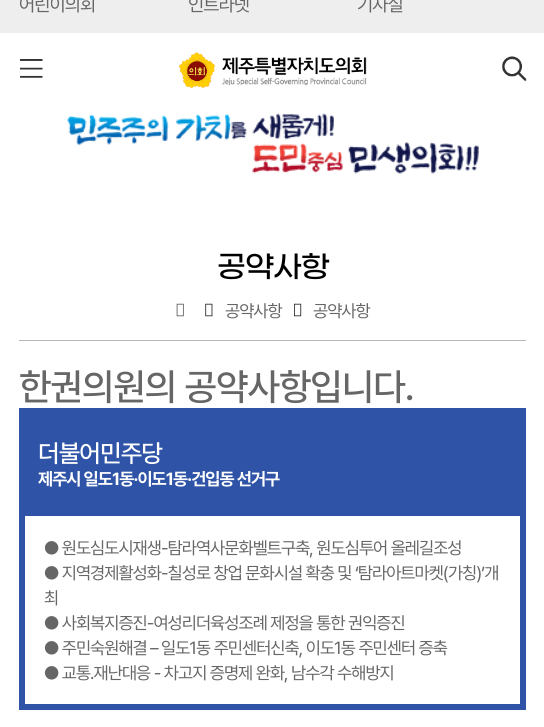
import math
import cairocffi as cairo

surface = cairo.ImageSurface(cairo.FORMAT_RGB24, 544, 727)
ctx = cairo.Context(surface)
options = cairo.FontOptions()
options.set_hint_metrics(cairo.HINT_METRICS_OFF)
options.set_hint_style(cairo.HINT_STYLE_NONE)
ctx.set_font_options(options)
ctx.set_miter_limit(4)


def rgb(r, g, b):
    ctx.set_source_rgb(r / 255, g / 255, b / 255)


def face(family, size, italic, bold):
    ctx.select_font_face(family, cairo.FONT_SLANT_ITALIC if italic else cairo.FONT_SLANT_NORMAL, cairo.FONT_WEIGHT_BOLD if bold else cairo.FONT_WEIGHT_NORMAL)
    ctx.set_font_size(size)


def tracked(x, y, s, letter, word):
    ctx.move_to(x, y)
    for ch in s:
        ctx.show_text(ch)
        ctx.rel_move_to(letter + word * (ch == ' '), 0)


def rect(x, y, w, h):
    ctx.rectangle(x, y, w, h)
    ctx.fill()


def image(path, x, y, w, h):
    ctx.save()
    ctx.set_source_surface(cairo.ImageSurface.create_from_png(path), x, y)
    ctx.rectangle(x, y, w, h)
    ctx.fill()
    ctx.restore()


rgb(255, 255, 255)
ctx.paint()
rgb(238, 238, 238)
rect(0, 0, 544, 33)
face('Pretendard', 18.75, 0, 0)
rgb(102, 102, 102)
tracked(19, 11, '어린이의회', -0.95, 0)
tracked(188, 11, '인트라넷', -0.95, 0)
tracked(357, 11, '기자실', -0.95, 0)
image('image0.png', 178, 52, 189, 37)
image('image1.png', 20, 59, 23, 19)
image('image2.png', 502, 56, 25, 25)
image('image3.png', 67, 113, 412, 61)
face('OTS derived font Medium', 30, 0, 0)
rgb(0, 0, 0)
tracked(217, 276, '공약사항', -0.95, 0)
rgb(184, 184, 184)
rect(19, 340, 507, 1)
image('image4.png', 176, 303, 8, 14)
image('image5.png', 205, 303, 8, 14)
face('Pretendard', 17.5, 0, 0)
rgb(102, 102, 102)
tracked(225, 317, '공약사항', -0.95, 0)
image('image6.png', 294, 303, 8, 14)
tracked(313, 317, '공약사항', -0.95, 0)
face('Pretendard Medium', 37.5, 0, 0)
tracked(19, 400, '한권의원의 공약사항입니다.', -0.95, 0)
ctx.rectangle(22, 411, 501, 296)
rgb(47, 84, 167)
ctx.set_line_width(6)
ctx.stroke()
rect(25, 414, 495, 102)
face('Pretendard Medium', 25, 0, 0)
rgb(255, 255, 255)
tracked(38, 462, '더불어민주당', -0.95, 0)
face('Pretendard', 17.5, 0, 1)
tracked(38, 485, '제주시 일도1동·이도1동·건입동 선거구', -0.95, 0)
face('Pretendard', 17.5, 0, 0)
rgb(102, 102, 102)
tracked(44, 554, '● 원도심도시재생-탐라역사문화벨트구축, 원도심투어 올레길조성', -0.95, 0)
tracked(44, 579, '● 지역경제활성화-칠성로 창업 문화시설 확충 및 ‘탐라아트마켓(가칭)’개', -0.95, 0)
tracked(44, 604, '최', -0.95, 0)
tracked(44, 629, '● 사회복지증진-여성리더육성조례 제정을 통한 권익증진', -0.95, 0)
tracked(44, 654, '● 주민숙원해결 – 일도1동 주민센터신축, 이도1동 주민센터 증축', -0.95, 0)
tracked(44, 679, '● 교통․재난대응 - 차고지 증명제 완화, 남수각 수해방지', -0.95, 0)
surface.write_to_png('render.png')
